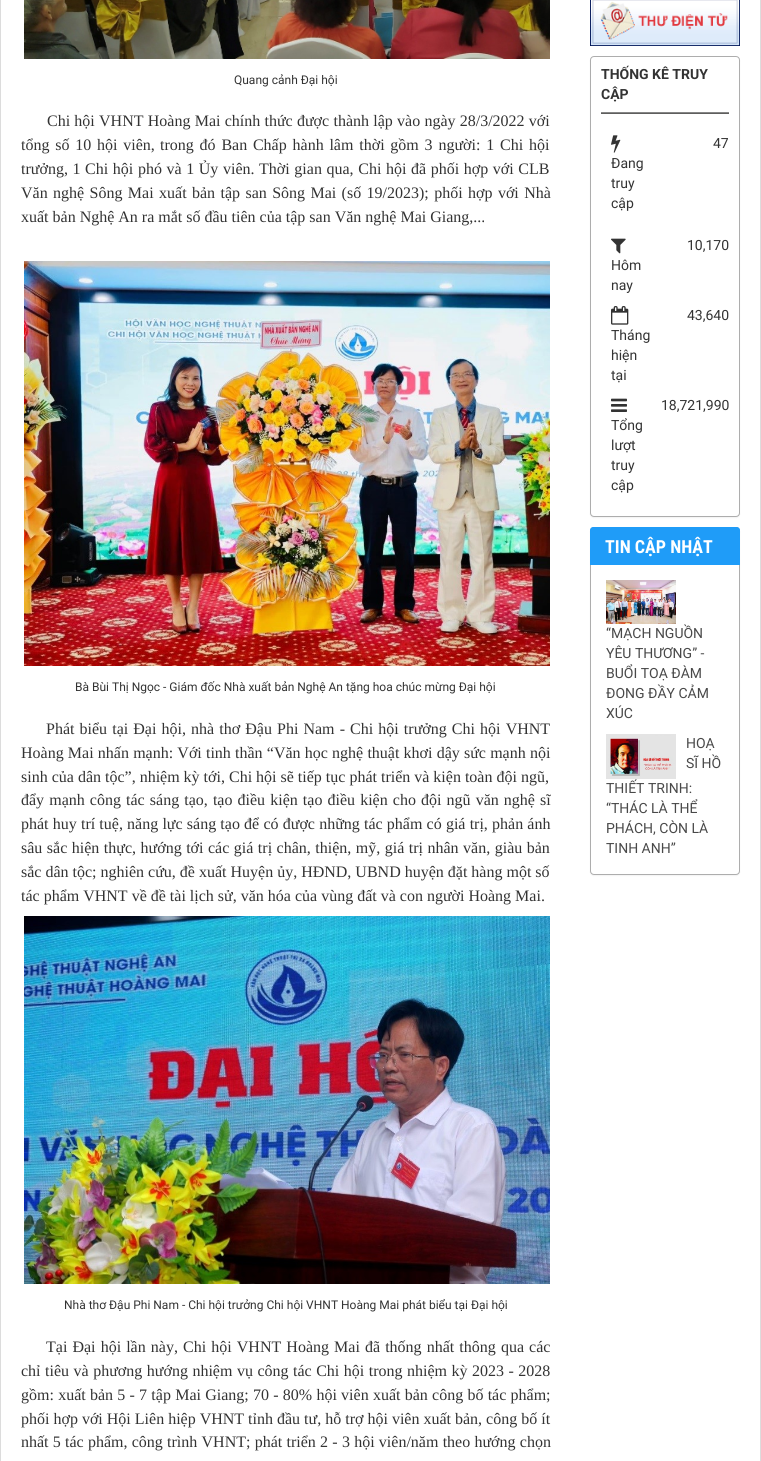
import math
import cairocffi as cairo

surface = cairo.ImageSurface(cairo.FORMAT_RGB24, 761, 1461)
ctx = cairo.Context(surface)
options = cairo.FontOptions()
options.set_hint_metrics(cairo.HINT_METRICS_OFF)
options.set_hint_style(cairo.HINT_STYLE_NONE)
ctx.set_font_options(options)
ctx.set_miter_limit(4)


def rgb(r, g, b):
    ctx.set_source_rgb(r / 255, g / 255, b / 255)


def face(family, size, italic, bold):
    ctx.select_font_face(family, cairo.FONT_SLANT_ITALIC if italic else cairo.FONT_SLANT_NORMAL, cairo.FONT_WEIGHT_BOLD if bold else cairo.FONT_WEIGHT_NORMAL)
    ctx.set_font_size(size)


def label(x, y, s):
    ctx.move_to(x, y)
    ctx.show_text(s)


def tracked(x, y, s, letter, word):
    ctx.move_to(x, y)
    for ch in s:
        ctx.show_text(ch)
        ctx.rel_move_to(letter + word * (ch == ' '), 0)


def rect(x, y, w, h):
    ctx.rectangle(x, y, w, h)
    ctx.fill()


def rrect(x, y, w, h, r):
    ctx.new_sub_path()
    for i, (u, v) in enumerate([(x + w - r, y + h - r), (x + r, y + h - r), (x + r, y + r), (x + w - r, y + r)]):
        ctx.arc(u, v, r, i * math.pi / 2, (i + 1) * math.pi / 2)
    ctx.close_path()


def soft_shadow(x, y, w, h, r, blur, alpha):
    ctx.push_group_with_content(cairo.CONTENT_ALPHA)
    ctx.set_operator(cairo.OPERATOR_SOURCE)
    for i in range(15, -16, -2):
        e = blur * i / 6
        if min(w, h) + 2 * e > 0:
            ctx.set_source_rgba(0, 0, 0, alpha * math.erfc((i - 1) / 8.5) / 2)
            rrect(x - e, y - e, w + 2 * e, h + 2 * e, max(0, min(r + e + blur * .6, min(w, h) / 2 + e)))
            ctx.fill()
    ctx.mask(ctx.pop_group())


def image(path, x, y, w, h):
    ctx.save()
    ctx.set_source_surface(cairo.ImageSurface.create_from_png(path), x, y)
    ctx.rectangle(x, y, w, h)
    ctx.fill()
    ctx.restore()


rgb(220, 220, 220)
ctx.paint()
rgb(255, 255, 255)
rect(1, 0, 759, 1461)
image('image0.png', 24, 0, 526, 59)
face('Roboto', 12, 0, 0)
rgb(51, 51, 51)
label(234, 84, 'Quang cảnh Đại hội')
face('Liberation Serif', 16, 0, 0)
tracked(47, 126, 'Chi hội VHNT Hoàng Mai chính thức được thành lập vào ngày 28/3/2022 với', 0, 0.25)
tracked(21, 150, 'tổng số 10 hội viên,', 0, 1.8)
tracked(160, 150, 'trong đó Ban Chấp hành lâm thời gồm 3 người: 1 Chi hội', 0, 1.8)
tracked(21, 174, 'trưởng, 1 Chi hội phó và 1 Ủy viên. Thời gian qua, Chi hội đã phối hợp với CLB', 0, 0.6)
tracked(21, 198, 'Văn nghệ Sông Mai xuất bản tập san Sông Mai (số 19/2023); phối hợp với Nhà', 0, 1.4)
label(21, 222, 'xuất bản Nghệ An ra mắt số đầu tiên của tập san Văn nghệ Mai Giang,...')
image('image1.png', 24, 261, 526, 405)
face('Roboto', 12, 0, 0)
label(75, 691, 'Bà Bùi Thị Ngọc - Giám đốc Nhà xuất bản Nghệ An tặng hoa chúc mừng Đại hội')
face('Liberation Serif', 16, 0, 0)
tracked(46, 734, 'Phát biểu tại Đại hội, nhà thơ Đậu Phi Nam - Chi hội trưởng Chi hội VHNT', 0, 1.1)
tracked(21, 758, 'Hoàng Mai nhấn mạnh: Với tinh thần “Văn học nghệ thuật khơi dậy sức mạnh nội', 0, 0.2)
label(21, 782, 'sinh của dân tộc”, nhiệm kỳ tới, Chi hội sẽ tiếp tục phát triển và kiện toàn đội ngũ,')
tracked(21, 805, 'đẩy mạnh công tác sáng tạo, tạo điều kiện tạo điều kiện cho đội ngũ văn nghệ sĩ', 0, 1.1)
tracked(21, 829, 'phát huy trí tuệ, năng lực sáng tạo để có được những tác phẩm có giá trị, phản ánh', 0, 0.2)
tracked(21, 853, 'sâu sắc hiện thực, hướng tới các giá trị chân, thiện, mỹ, giá trị nhân văn, giàu bản', 0, 0.5)
label(21, 877, 'sắc dân tộc; nghiên cứu, đề xuất Huyện ủy, HĐND, UBND huyện đặt hàng một số')
label(21, 901, 'tác phẩm VHNT về đề tài lịch sử, văn hóa của vùng đất và con người Hoàng Mai.')
image('image2.png', 24, 916, 526, 368)
face('Roboto', 12, 0, 0)
label(64, 1309, 'Nhà thơ Đậu Phi Nam - Chi hội trưởng Chi hội VHNT Hoàng Mai phát biểu tại Đại hội')
face('Liberation Serif', 16, 0, 0)
tracked(46, 1352, 'Tại Đại hội lần này, Chi hội VHNT Hoàng Mai đã thống nhất thông qua các', 0, 1.1)
tracked(21, 1376, 'chỉ tiêu và phương hướng nhiệm vụ công tác Chi hội trong nhiệm kỳ 2023 - 2028', 0, 0.5)
tracked(21, 1400, 'gồm: xuất bản 5 - 7 tập Mai Giang; 70 - 80% hội viên xuất bản công bố tác phẩm;', 0, 0.25)
label(21, 1424, 'phối hợp với Hội Liên hiệp VHNT tỉnh đầu tư, hỗ trợ hội viên xuất bản, công bố ít')
tracked(21, 1447, 'nhất 5 tác phẩm, công trình VHNT; phát triển 2 - 3 hội viên/năm theo hướng chọn', 0, 0.25)
image('image3.png', 590, 0, 150, 46)
rgb(0, 0, 0)
soft_shadow(590, 57, 150, 461, 4, 0.5, 0.05)
rgb(255, 255, 255)
rrect(590.5, 56.5, 149, 460, 3.5)
ctx.fill_preserve()
rgb(173, 173, 173)
ctx.set_line_width(1)
ctx.stroke()
rgb(94, 94, 93)
rect(601, 113, 128, 1)
rgb(134, 134, 134)
rect(601, 112, 128, 1)
face('Roboto', 14, 0, 1)
rgb(51, 51, 51)
label(601, 79, 'THỐNG KÊ TRUY')
label(601, 99, 'CẬP')
face('Roboto', 14, 0, 0)
label(713, 148, '47')
image('image4.png', 611, 135, 10, 18)
label(611, 168, 'Đang')
label(611, 188, 'truy')
label(611, 208, 'cập')
label(687, 250, '10,170')
image('image5.png', 611, 238, 15, 16)
label(611, 270, 'Hôm')
label(611, 290, 'nay')
label(687, 320, '43,640')
image('image6.png', 611, 306, 18, 19)
label(611, 340, 'Tháng')
label(611, 360, 'hiện')
label(611, 380, 'tại')
label(661, 410, '18,721,990')
image('image7.png', 611, 398, 16, 14)
label(611, 430, 'Tổng')
label(611, 450, 'lượt')
label(611, 470, 'truy')
label(611, 490, 'cập')
rgb(0, 0, 0)
soft_shadow(590, 528, 150, 348, 4, 0.5, 0.05)
rgb(255, 255, 255)
rrect(590.5, 527.5, 149, 347, 3.5)
ctx.fill_preserve()
rgb(173, 173, 173)
ctx.stroke()
rgb(31, 156, 248)
ctx.new_path()
ctx.move_to(593, 527)
ctx.line_to(737, 527)
ctx.curve_to(738.5, 527, 740, 528.5, 740, 530)
ctx.line_to(740, 565)
ctx.line_to(590, 565)
ctx.line_to(590, 530)
ctx.curve_to(590, 528.5, 591.5, 527, 593, 527)
ctx.close_path()
ctx.fill()
face('Roboto Condensed', 18, 0, 1)
rgb(255, 255, 255)
label(605, 553, 'TIN CẬP NHẬT')
image('image8.png', 606, 580, 70, 44)
face('Roboto', 14, 0, 0)
rgb(73, 73, 73)
label(606, 638, '“MẠCH NGUỒN')
label(606, 658, 'YÊU THƯƠNG” -')
label(606, 678, 'BUỔI TOẠ ĐÀM')
label(606, 698, 'ĐONG ĐẦY CẢM')
label(606, 718, 'XÚC')
image('image9.png', 606, 734, 70, 45)
label(686, 748, 'HOẠ')
label(686, 768, 'SĨ HỒ')
label(606, 793, 'THIẾT TRINH:')
label(606, 813, '“THÁC LÀ THỂ')
label(606, 833, 'PHÁCH, CÒN LÀ')
label(606, 853, 'TINH ANH”')
surface.write_to_png('render.png')
